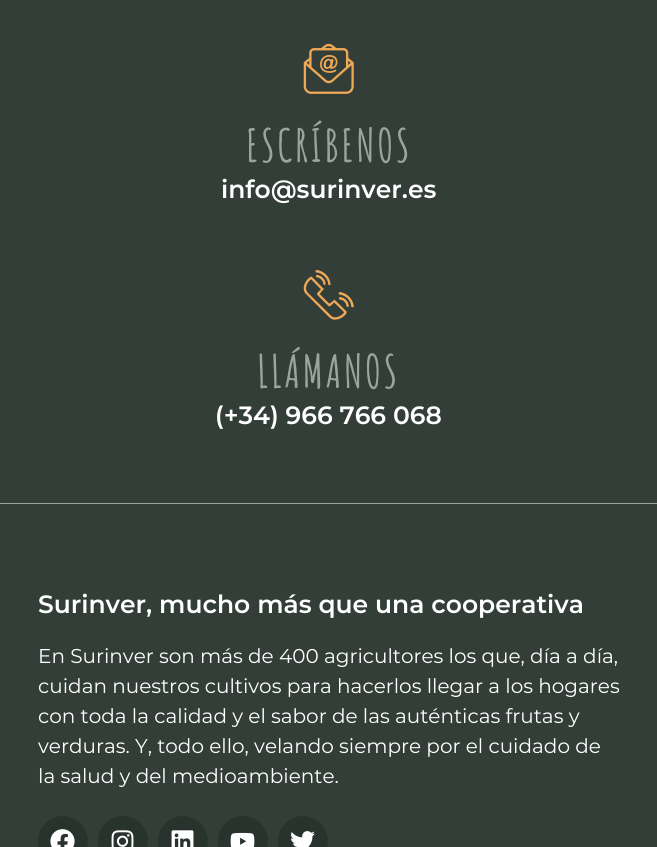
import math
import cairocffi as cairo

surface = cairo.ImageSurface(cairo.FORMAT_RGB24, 657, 847)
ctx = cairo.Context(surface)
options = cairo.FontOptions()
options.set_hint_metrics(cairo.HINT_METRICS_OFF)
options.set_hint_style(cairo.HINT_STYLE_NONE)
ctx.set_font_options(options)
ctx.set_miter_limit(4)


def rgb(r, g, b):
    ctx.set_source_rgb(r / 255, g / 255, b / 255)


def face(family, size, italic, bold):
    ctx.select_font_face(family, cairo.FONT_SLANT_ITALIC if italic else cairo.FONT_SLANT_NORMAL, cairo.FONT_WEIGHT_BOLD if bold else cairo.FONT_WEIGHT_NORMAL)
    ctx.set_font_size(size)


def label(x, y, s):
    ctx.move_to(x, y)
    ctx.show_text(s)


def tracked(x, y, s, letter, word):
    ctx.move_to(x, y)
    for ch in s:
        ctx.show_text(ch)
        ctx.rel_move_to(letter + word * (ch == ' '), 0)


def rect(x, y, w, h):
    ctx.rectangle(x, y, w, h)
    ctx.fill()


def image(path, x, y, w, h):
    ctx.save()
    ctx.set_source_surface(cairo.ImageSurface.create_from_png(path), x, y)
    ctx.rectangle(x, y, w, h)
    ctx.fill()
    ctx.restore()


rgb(50, 62, 55)
ctx.paint()
rgb(153, 165, 158)
rect(0, 503, 657, 1)
image('image0.png', 303, 43, 51, 51)
face('Amatic SC', 45, 0, 1)
tracked(246, 162, 'ESCRÍBENOS', 2.5, 0)
face('Montserrat SemiBold', 25, 0, 0)
rgb(255, 255, 255)
label(221, 198, 'info@surinver.es')
image('image1.png', 303, 270, 51, 50)
face('Amatic SC', 45, 0, 1)
rgb(153, 165, 158)
tracked(257, 388, 'LLÁMANOS', 2.5, 0)
face('Montserrat SemiBold', 25, 0, 0)
rgb(255, 255, 255)
label(215, 424, '(+34) 966 766 068')
label(38, 613, 'Surinver, mucho más que una cooperativa')
face('Montserrat', 20, 0, 0)
label(38, 663, 'En Surinver son más de 400 agricultores los que, día a día,')
label(38, 693, 'cuidan nuestros cultivos para hacerlos llegar a los hogares')
label(38, 723, 'con toda la calidad y el sabor de las auténticas frutas y')
label(38, 753, 'verduras. Y, todo ello, velando siempre por el cuidado de')
label(38, 783, 'la salud y del medioambiente.')
rgb(40, 51, 45)
ctx.new_path()
ctx.arc(63, 841, 25, 0, 2 * math.pi)
ctx.fill()
image('image2.png', 50, 829, 25, 18)
ctx.arc(123, 841, 25, 0, 2 * math.pi)
ctx.fill()
image('image3.png', 111, 830, 23, 17)
ctx.arc(183, 841, 25, 0, 2 * math.pi)
ctx.fill()
image('image4.png', 171, 830, 23, 17)
ctx.arc(243, 841, 25, 0, 2 * math.pi)
ctx.fill()
image('image5.png', 230, 832, 25, 15)
ctx.arc(303, 841, 25, 0, 2 * math.pi)
ctx.fill()
image('image6.png', 291, 831, 24, 16)
surface.write_to_png('render.png')
